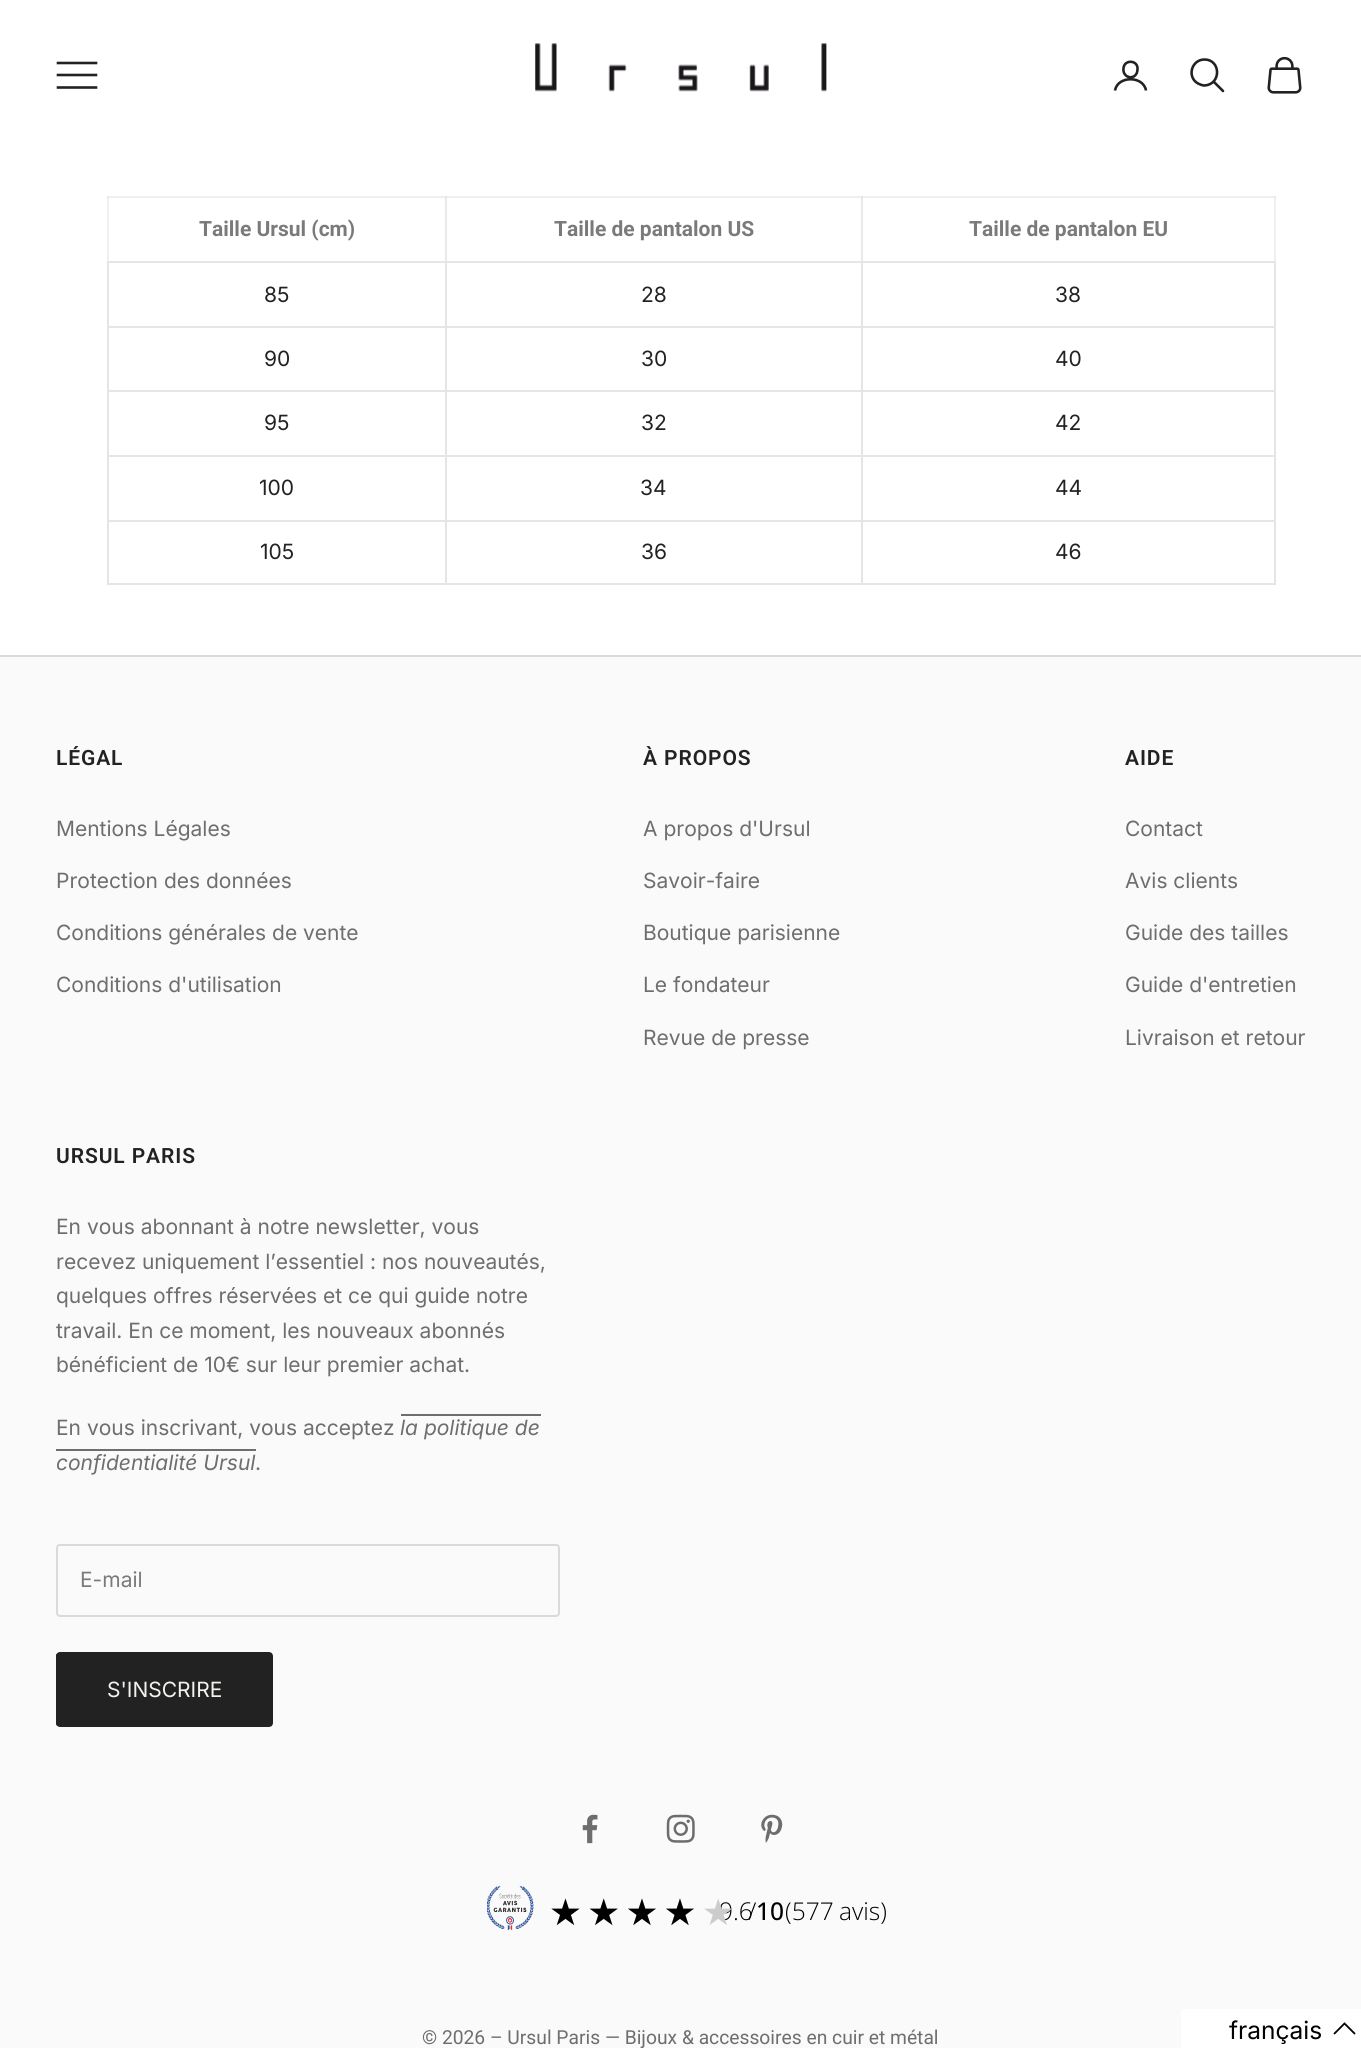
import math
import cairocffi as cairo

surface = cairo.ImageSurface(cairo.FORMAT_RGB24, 1361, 2048)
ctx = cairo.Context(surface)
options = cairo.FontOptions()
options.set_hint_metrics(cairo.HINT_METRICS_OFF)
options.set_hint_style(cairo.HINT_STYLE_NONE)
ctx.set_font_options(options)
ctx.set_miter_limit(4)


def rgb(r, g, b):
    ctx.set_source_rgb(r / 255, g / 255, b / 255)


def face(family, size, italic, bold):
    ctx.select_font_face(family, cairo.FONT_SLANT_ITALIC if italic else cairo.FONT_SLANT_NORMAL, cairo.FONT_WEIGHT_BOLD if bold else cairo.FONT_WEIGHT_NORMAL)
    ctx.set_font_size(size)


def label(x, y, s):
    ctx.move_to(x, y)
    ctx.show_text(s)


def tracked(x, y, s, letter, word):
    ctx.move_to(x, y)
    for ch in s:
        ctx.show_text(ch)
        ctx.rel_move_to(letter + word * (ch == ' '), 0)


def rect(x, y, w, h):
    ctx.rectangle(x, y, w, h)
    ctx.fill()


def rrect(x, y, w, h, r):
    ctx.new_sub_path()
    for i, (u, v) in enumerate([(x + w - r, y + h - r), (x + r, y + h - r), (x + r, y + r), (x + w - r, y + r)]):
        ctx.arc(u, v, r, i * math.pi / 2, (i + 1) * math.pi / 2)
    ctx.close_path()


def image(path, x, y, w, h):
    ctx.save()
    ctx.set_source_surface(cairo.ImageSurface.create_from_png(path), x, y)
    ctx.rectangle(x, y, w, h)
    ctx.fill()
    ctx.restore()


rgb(255, 255, 255)
ctx.paint()
rgb(239, 239, 239)
rect(107, 196, 2, 67)
rect(107, 196, 339, 2)
rgb(233, 233, 233)
rect(107, 196, 2, 2)
rect(445, 196, 2, 67)
rgb(239, 239, 239)
rect(445, 196, 418, 2)
rgb(231, 231, 231)
rect(445, 196, 2, 2)
rgb(233, 233, 233)
rect(861, 196, 2, 67)
rgb(239, 239, 239)
rect(1274, 196, 2, 67)
ctx.new_path()
ctx.move_to(58, 87.5)
ctx.line_to(96, 87.5)
ctx.move_to(58, 75)
ctx.line_to(96, 75)
ctx.move_to(58, 63)
ctx.line_to(96, 63)
rgb(34, 34, 34)
ctx.set_line_width(2.6)
ctx.set_line_cap(cairo.LINE_CAP_SQUARE)
ctx.stroke()
image('image0.png', 535, 43, 292, 49)
ctx.new_path()
ctx.move_to(1137.5, 69.5)
ctx.curve_to(1137, 81, 1122, 79, 1123.5, 68)
ctx.curve_to(1124.5, 59, 1138.5, 60, 1137.5, 69.5)
ctx.close_path()
ctx.set_line_cap(cairo.LINE_CAP_ROUND)
ctx.set_line_join(cairo.LINE_JOIN_ROUND)
ctx.stroke()
ctx.new_path()
ctx.move_to(1115, 90.5)
ctx.curve_to(1117.5, 75.5, 1143.5, 75.5, 1146, 90.5)
ctx.set_line_cap(cairo.LINE_CAP_BUTT)
ctx.set_line_join(cairo.LINE_JOIN_MITER)
ctx.stroke()
ctx.new_path()
ctx.move_to(1204.5, 59.5)
ctx.curve_to(1191.5, 59.5, 1186.5, 77, 1198, 83.5)
ctx.curve_to(1200, 84.5, 1202.5, 85.5, 1204.5, 85.5)
ctx.curve_to(1221.5, 84.5, 1221, 59.5, 1204.5, 59.5)
ctx.close_path()
ctx.stroke()
ctx.new_path()
ctx.move_to(1214, 82)
ctx.line_to(1223, 91)
ctx.set_line_cap(cairo.LINE_CAP_ROUND)
ctx.stroke()
image('image1.png', 1267, 56, 35, 38)
face('Roboto', 21, 0, 1)
rgb(122, 122, 122)
label(199, 236, 'Taille Ursul (cm)')
label(554, 236, 'Taille de pantalon US')
rgb(239, 239, 239)
rect(861, 196, 415, 2)
rgb(230, 230, 230)
rect(861, 196, 2, 2)
rgb(233, 233, 233)
rect(1274, 196, 2, 2)
rgb(122, 122, 122)
label(969, 236, 'Taille de pantalon EU')
rgb(229, 229, 229)
rect(861, 261, 415, 2)
rect(861, 326, 415, 2)
rect(861, 390, 415, 2)
rect(861, 455, 415, 2)
rect(861, 520, 415, 2)
rect(1274, 520, 2, 65)
rect(861, 583, 415, 2)
rect(861, 520, 2, 65)
rect(445, 520, 418, 2)
rect(861, 455, 2, 67)
rect(445, 455, 418, 2)
rect(861, 390, 2, 67)
rect(445, 390, 418, 2)
rect(861, 326, 2, 66)
rect(445, 326, 418, 2)
rect(861, 261, 2, 66)
rect(445, 261, 418, 2)
rect(445, 583, 418, 2)
rect(445, 520, 2, 65)
rect(107, 520, 339, 2)
rect(445, 455, 2, 67)
rect(107, 455, 339, 2)
rect(445, 390, 2, 67)
rect(107, 390, 339, 2)
rect(445, 326, 2, 66)
rect(107, 326, 339, 2)
rect(445, 261, 2, 66)
rect(107, 261, 339, 2)
rect(107, 583, 339, 2)
rect(107, 520, 2, 65)
rect(107, 455, 2, 67)
rect(107, 390, 2, 67)
rect(107, 326, 2, 66)
rect(107, 261, 2, 66)
face('Inter', 21, 0, 0)
rgb(34, 34, 34)
label(264, 302, '85')
label(641, 302, '28')
rgb(229, 229, 229)
rect(1274, 455, 2, 67)
rect(1274, 390, 2, 67)
rect(1274, 326, 2, 66)
rect(1274, 261, 2, 66)
rgb(34, 34, 34)
label(1055, 302, '38')
label(264, 366, '90')
label(641, 366, '30')
label(1055, 366, '40')
label(264, 430, '95')
label(641, 430, '32')
label(1055, 430, '42')
label(259, 495, '100')
label(640, 495, '34')
label(1055, 495, '44')
label(260, 559, '105')
label(641, 559, '36')
label(1055, 559, '46')
rgb(250, 250, 250)
rect(0, 657, 1361, 1391)
rgb(218, 218, 218)
rect(0, 655, 1361, 2)
face('Roboto SemiBold', 21, 0, 0)
rgb(34, 34, 34)
tracked(56, 765, 'LÉGAL', 0.9, 0)
face('Inter', 21, 0, 0)
rgb(110, 110, 110)
label(56, 836, 'Mentions Légales')
label(56, 888, 'Protection des données')
label(56, 940, 'Conditions générales de vente')
label(56, 992, 'Conditions d\'utilisation')
face('Roboto SemiBold', 21, 0, 0)
rgb(34, 34, 34)
tracked(643, 765, 'À PROPOS', 0.9, 0)
face('Inter', 21, 0, 0)
rgb(110, 110, 110)
label(643, 836, 'A propos d\'Ursul')
label(643, 888, 'Savoir-faire')
label(643, 940, 'Boutique parisienne')
label(643, 992, 'Le fondateur')
label(643, 1045, 'Revue de presse')
face('Roboto SemiBold', 21, 0, 0)
rgb(34, 34, 34)
tracked(1125, 765, 'AIDE', 0.9, 0)
face('Inter', 21, 0, 0)
rgb(110, 110, 110)
label(1125, 836, 'Contact')
label(1125, 888, 'Avis clients')
label(1125, 940, 'Guide des tailles')
label(1125, 992, 'Guide d\'entretien')
label(1125, 1045, 'Livraison et retour')
face('Roboto SemiBold', 21, 0, 0)
rgb(34, 34, 34)
tracked(56, 1163, 'URSUL PARIS', 0.9, 0)
face('Inter', 21, 0, 0)
rgb(110, 110, 110)
label(56, 1234, 'En vous abonnant à notre newsletter, vous')
label(56, 1269, 'recevez uniquement l’essentiel : nos nouveautés,')
label(56, 1303, 'quelques offres réservées et ce qui guide notre')
label(56, 1338, 'travail. En ce moment, les nouveaux abonnés')
label(56, 1372, 'bénéficient de 10€ sur leur premier achat.')
label(56, 1435, 'En vous inscrivant, vous acceptez')
face('Inter', 21, 1, 0)
label(400, 1435, 'la politique de')
rect(401, 1414, 140, 2)
label(56, 1470, 'confidentialité Ursul')
rect(56, 1449, 200, 2)
face('Inter', 21, 0, 0)
label(255, 1470, '.')
rrect(57, 1545, 502, 71, 3)
rgb(218, 218, 218)
ctx.set_line_width(2)
ctx.set_line_cap(cairo.LINE_CAP_BUTT)
ctx.stroke()
rgb(122, 122, 122)
label(80, 1587, 'E-mail')
ctx.save()
rrect(56, 1652, 217, 75, 4)
ctx.clip()
rgb(34, 34, 34)
rect(56, 1654, 215, 72)
ctx.restore()
rrect(57, 1653, 215, 73, 3)
rgb(34, 34, 34)
ctx.stroke()
rgb(243, 242, 239)
label(107, 1697, 'S\'INSCRIRE')
image('image2.png', 582, 1814, 16, 30)
image('image3.png', 666, 1814, 29, 29)
image('image4.png', 761, 1814, 22, 29)
image('image5.png', 487, 1886, 47, 45)
face('Open Sans Light', 24.5, 0, 0)
rgb(0, 0, 0)
label(719, 1920, '9.6')
face('DejaVu Sans', 36.75, 0, 0)
rgb(204, 204, 204)
tracked(549, 1925, '★★★★★', 5.25, 0)
rgb(0, 0, 0)
tracked(549, 1925, '★★★★', 5.25, 0)
face('Open Sans Light', 24.5, 0, 0)
label(748, 1920, '/')
face('Open Sans Medium', 24.5, 0, 0)
label(756, 1920, '10')
face('Open Sans Light', 24.5, 0, 0)
tracked(785, 1920, '(577 avis)', 0, -1)
face('Roboto', 19.25, 0, 0)
rgb(110, 110, 110)
label(422, 2044, '© 2026 – Ursul Paris — Bijoux & accessoires en cuir et métal')
rgb(255, 255, 255)
rect(1181, 2009, 180, 39)
face('Inter', 24.5, 0, 0)
rgb(0, 0, 0)
label(1229, 2039, 'français')
ctx.new_path()
ctx.move_to(1355, 2034)
ctx.line_to(1344.5, 2023.5)
ctx.line_to(1334, 2034)
ctx.set_line_width(1.8)
ctx.stroke()
surface.write_to_png('render.png')
